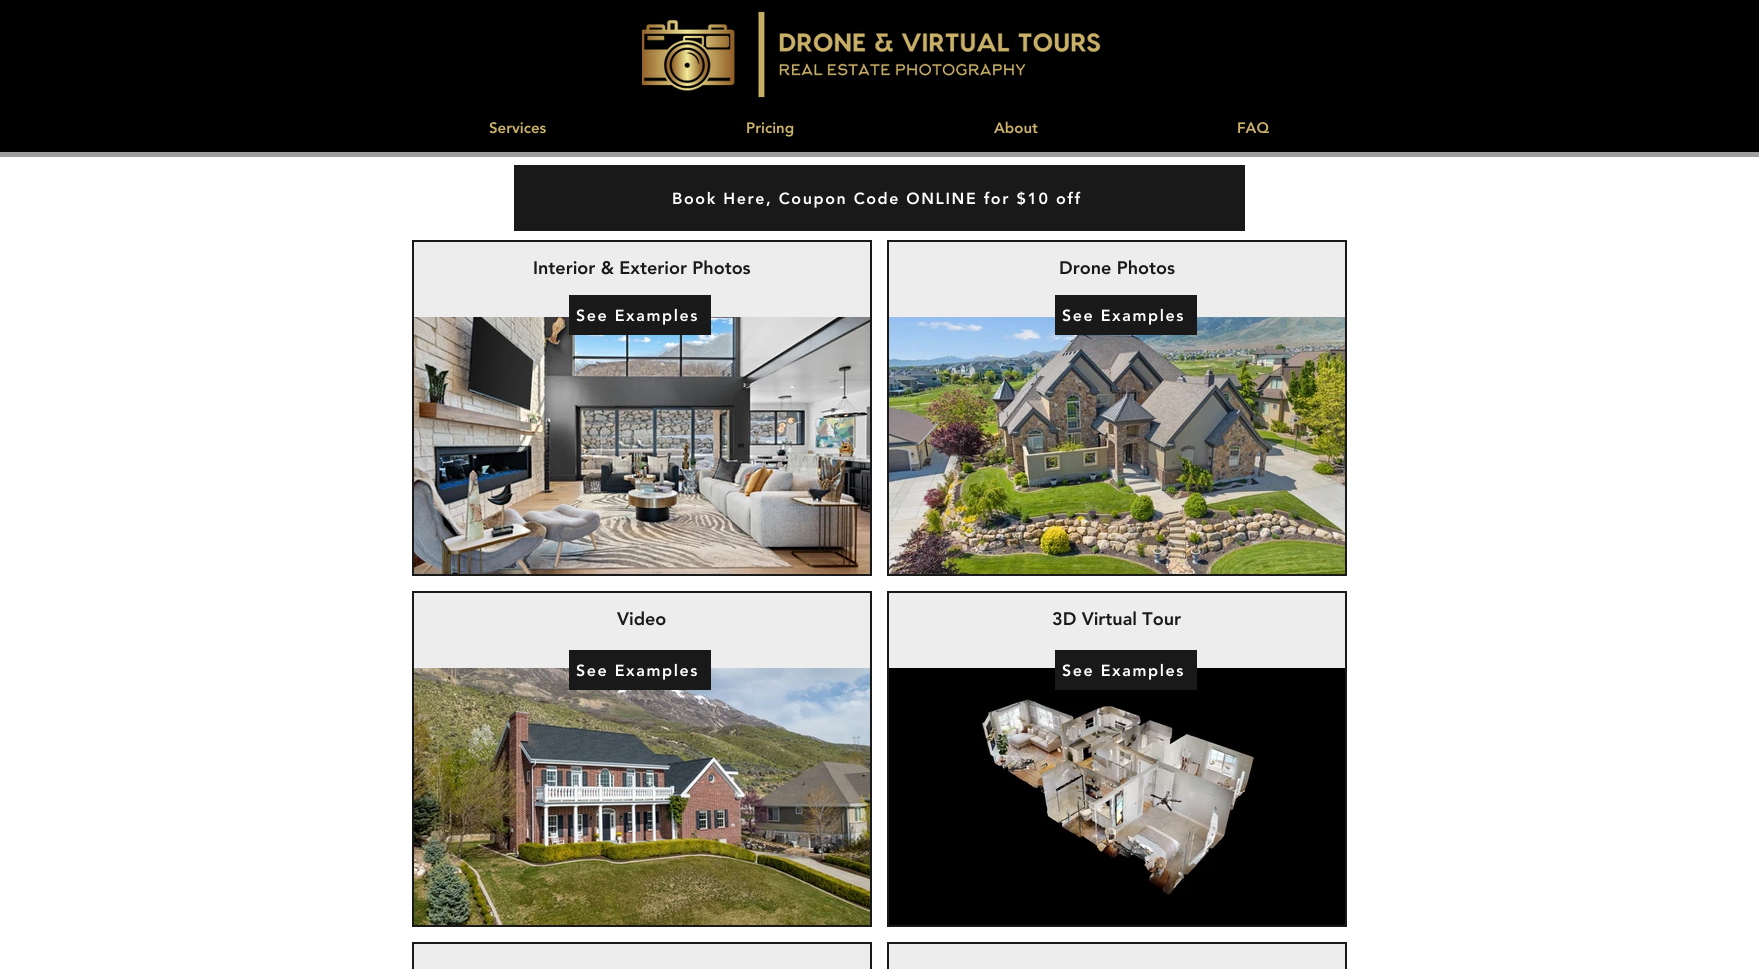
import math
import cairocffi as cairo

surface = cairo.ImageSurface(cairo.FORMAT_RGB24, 1759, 969)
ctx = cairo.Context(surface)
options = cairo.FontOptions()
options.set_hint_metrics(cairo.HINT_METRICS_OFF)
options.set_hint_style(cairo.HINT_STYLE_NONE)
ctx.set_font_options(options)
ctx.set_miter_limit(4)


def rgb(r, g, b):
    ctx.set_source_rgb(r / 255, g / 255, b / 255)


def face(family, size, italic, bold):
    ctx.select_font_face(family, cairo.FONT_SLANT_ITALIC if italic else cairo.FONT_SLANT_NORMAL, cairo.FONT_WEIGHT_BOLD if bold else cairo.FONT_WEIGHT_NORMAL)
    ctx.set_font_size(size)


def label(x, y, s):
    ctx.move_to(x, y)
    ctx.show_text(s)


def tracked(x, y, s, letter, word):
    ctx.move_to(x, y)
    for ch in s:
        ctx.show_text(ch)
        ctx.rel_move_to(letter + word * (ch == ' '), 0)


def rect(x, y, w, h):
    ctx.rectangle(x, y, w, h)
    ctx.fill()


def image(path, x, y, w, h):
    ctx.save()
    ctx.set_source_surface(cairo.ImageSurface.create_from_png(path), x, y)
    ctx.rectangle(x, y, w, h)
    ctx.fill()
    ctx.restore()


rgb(255, 255, 255)
ctx.paint()
rgb(0, 0, 0)
rect(0, 0, 1759, 152)
rgb(158, 158, 158)
rect(0, 152, 1759, 5)
image('image0.png', 642, 11, 459, 87)
face('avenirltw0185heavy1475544 Black', 15, 0, 0)
rgb(203, 178, 106)
label(489, 133, 'Services')
label(746, 133, 'Pricing')
label(994, 133, 'About')
label(1237, 133, 'FAQ')
rgb(25, 25, 25)
rect(514, 165, 731, 66)
face('avenirltw0185heavy1475544 Black', 16, 0, 0)
rgb(255, 255, 255)
tracked(672, 204, 'Book Here, Coupon Code ONLINE for $10 off', 1.6, 0)
ctx.rectangle(413, 241, 458, 334)
rgb(25, 25, 25)
ctx.stroke()
rgb(237, 237, 237)
rect(414, 242, 456, 75)
face('avenirltw0185heavy1475544 Black', 18, 0, 0)
rgb(25, 25, 25)
label(533, 274, 'Interior & Exterior Photos')
image('image1.png', 414, 317, 456, 257)
ctx.rectangle(888, 241, 458, 334)
ctx.stroke()
rgb(237, 237, 237)
rect(889, 242, 456, 75)
rgb(25, 25, 25)
label(1059, 274, 'Drone Photos')
image('image2.png', 889, 317, 456, 257)
ctx.rectangle(413, 592, 458, 334)
ctx.stroke()
rgb(237, 237, 237)
rect(414, 593, 456, 75)
rgb(25, 25, 25)
label(617, 625, 'Video')
image('image3.png', 414, 668, 456, 257)
ctx.rectangle(888, 592, 458, 334)
ctx.stroke()
rgb(237, 237, 237)
rect(889, 593, 456, 75)
rgb(25, 25, 25)
label(1052, 625, '3D Virtual Tour')
image('image4.png', 889, 668, 456, 257)
ctx.rectangle(413, 943, 458, 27)
ctx.stroke()
rgb(237, 237, 237)
rect(414, 944, 456, 25)
ctx.rectangle(888, 943, 458, 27)
rgb(25, 25, 25)
ctx.stroke()
rgb(237, 237, 237)
rect(889, 944, 456, 25)
rgb(25, 25, 25)
rect(569, 295, 142, 40)
face('avenirltw0185heavy1475544 Black', 16, 0, 0)
rgb(255, 255, 255)
tracked(576, 321, 'See Examples', 1.6, 0)
rgb(25, 25, 25)
rect(1055, 295, 142, 40)
rgb(255, 255, 255)
tracked(1062, 321, 'See Examples', 1.6, 0)
rgb(25, 25, 25)
rect(569, 650, 142, 40)
rgb(255, 255, 255)
tracked(576, 676, 'See Examples', 1.6, 0)
rgb(25, 25, 25)
rect(1055, 650, 142, 40)
rgb(255, 255, 255)
tracked(1062, 676, 'See Examples', 1.6, 0)
surface.write_to_png('render.png')
